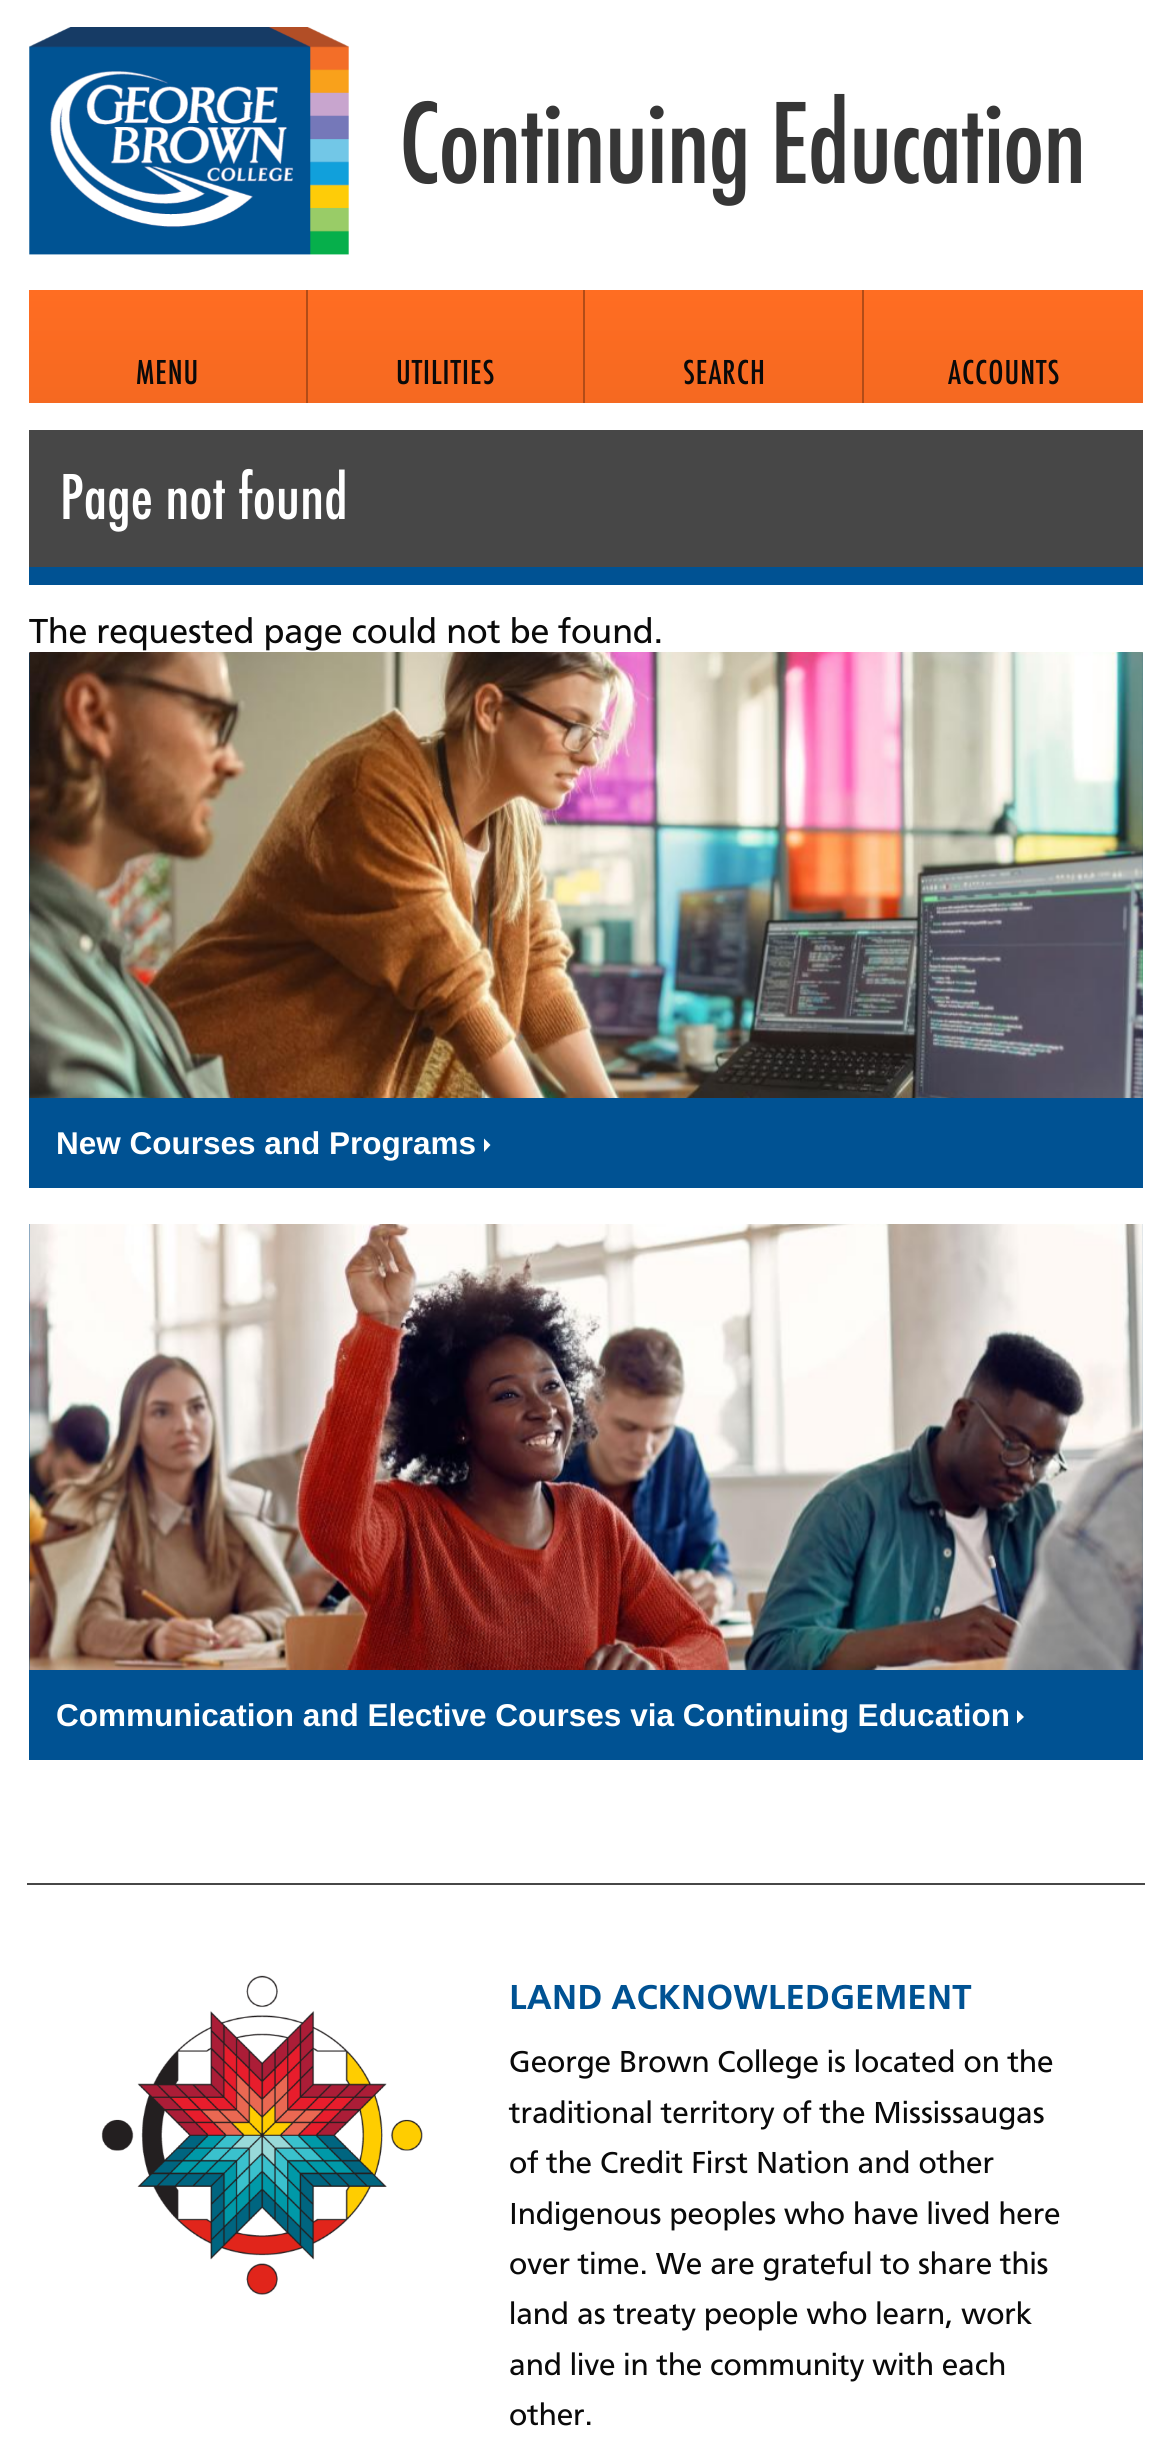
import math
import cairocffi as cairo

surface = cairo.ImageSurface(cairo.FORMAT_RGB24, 1171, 2445)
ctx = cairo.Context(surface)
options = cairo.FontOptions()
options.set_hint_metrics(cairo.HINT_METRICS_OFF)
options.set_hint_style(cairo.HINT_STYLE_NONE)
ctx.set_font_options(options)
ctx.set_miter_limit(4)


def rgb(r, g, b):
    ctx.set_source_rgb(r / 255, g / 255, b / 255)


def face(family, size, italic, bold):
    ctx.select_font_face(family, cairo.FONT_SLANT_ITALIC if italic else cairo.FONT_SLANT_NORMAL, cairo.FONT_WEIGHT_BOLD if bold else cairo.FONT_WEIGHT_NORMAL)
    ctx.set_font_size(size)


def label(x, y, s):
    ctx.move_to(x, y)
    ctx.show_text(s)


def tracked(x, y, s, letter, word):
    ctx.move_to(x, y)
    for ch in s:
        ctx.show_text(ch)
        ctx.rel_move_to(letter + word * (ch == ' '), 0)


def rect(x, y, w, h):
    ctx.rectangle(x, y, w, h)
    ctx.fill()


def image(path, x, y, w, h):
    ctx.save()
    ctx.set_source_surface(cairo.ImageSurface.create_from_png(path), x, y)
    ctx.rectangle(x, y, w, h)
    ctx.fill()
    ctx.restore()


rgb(255, 255, 255)
ctx.paint()
image('image0.png', 29, 27, 320, 228)
face('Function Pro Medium', 121.5, 0, 0)
rgb(54, 54, 54)
tracked(399, 183, 'Continuing Education', -1.5, 0)
gradient = cairo.LinearGradient(168, 290, 168, 403)
gradient.add_color_stop_rgba(0, 1, 0.427, 0.133, 1)
gradient.add_color_stop_rgba(1, 0.961, 0.412, 0.129, 1)
ctx.set_source(gradient)
rect(29, 290, 277, 113)
rgb(178, 76, 23)
rect(306, 290, 2, 113)
face('Function Pro Medium', 36, 0, 0)
rgb(10, 10, 10)
tracked(136, 384, 'MENU', 1, 0)
gradient = cairo.LinearGradient(446, 290, 446, 403)
gradient.add_color_stop_rgba(0, 1, 0.427, 0.133, 1)
gradient.add_color_stop_rgba(1, 0.961, 0.412, 0.129, 1)
ctx.set_source(gradient)
rect(308, 290, 275, 113)
rgb(178, 76, 23)
rect(583, 290, 2, 113)
rgb(10, 10, 10)
tracked(396, 384, 'UTILITIES', 1, 0)
gradient = cairo.LinearGradient(723, 290, 723, 403)
gradient.add_color_stop_rgba(0, 1, 0.427, 0.133, 1)
gradient.add_color_stop_rgba(1, 0.961, 0.412, 0.129, 1)
ctx.set_source(gradient)
rect(585, 290, 277, 113)
rgb(178, 76, 23)
rect(862, 290, 2, 113)
rgb(10, 10, 10)
tracked(683, 384, 'SEARCH', 1, 0)
gradient = cairo.LinearGradient(1004, 290, 1004, 403)
gradient.add_color_stop_rgba(0, 1, 0.427, 0.133, 1)
gradient.add_color_stop_rgba(1, 0.961, 0.412, 0.129, 1)
ctx.set_source(gradient)
rect(864, 290, 279, 113)
rgb(10, 10, 10)
tracked(948, 384, 'ACCOUNTS', 1, 0)
rgb(71, 71, 71)
rect(29, 430, 1114, 137)
rgb(0, 82, 147)
rect(29, 567, 1114, 18)
face('Function Pro Medium', 67.5, 0, 0)
rgb(255, 255, 255)
label(60, 519, 'Page not found')
face('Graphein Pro', 36, 0, 0)
rgb(10, 10, 10)
label(29, 643, 'The requested page could not be found.')
rgb(0, 82, 147)
rect(29, 653, 1114, 535)
image('image1.png', 29, 652, 1114, 446)
face('Liberation Sans', 31.5, 0, 1)
rgb(255, 255, 255)
label(56, 1154, 'New Courses and Programs')
rgb(254, 254, 254)
ctx.new_path()
ctx.move_to(484, 1152)
ctx.line_to(484, 1138.5)
ctx.line_to(490.5, 1145)
ctx.close_path()
ctx.fill()
rgb(0, 82, 147)
rect(29, 1224, 1114, 536)
image('image2.png', 29, 1224, 1114, 446)
rgb(255, 255, 255)
label(56, 1726, 'Communication and Elective Courses via Continuing Education')
rgb(254, 254, 254)
ctx.new_path()
ctx.move_to(1017, 1723.5)
ctx.line_to(1017, 1710)
ctx.line_to(1024, 1717)
ctx.close_path()
ctx.fill()
rgb(71, 71, 71)
rect(27, 1883, 1118, 2)
image('image3.png', 101, 1975, 322, 320)
face('Graphein Pro', 36, 0, 1)
rgb(0, 82, 147)
label(509, 2009, 'LAND ACKNOWLEDGEMENT')
face('Graphein Pro', 31.5, 0, 0)
rgb(10, 10, 10)
label(509, 2072, 'George Brown College is located on the')
label(509, 2123, 'traditional territory of the Mississaugas')
label(509, 2173, 'of the Credit First Nation and other')
label(509, 2224, 'Indigenous peoples who have lived here')
label(509, 2274, 'over time. We are grateful to share this')
label(509, 2324, 'land as treaty people who learn, work')
label(509, 2375, 'and live in the community with each')
label(509, 2425, 'other.')
surface.write_to_png('render.png')
